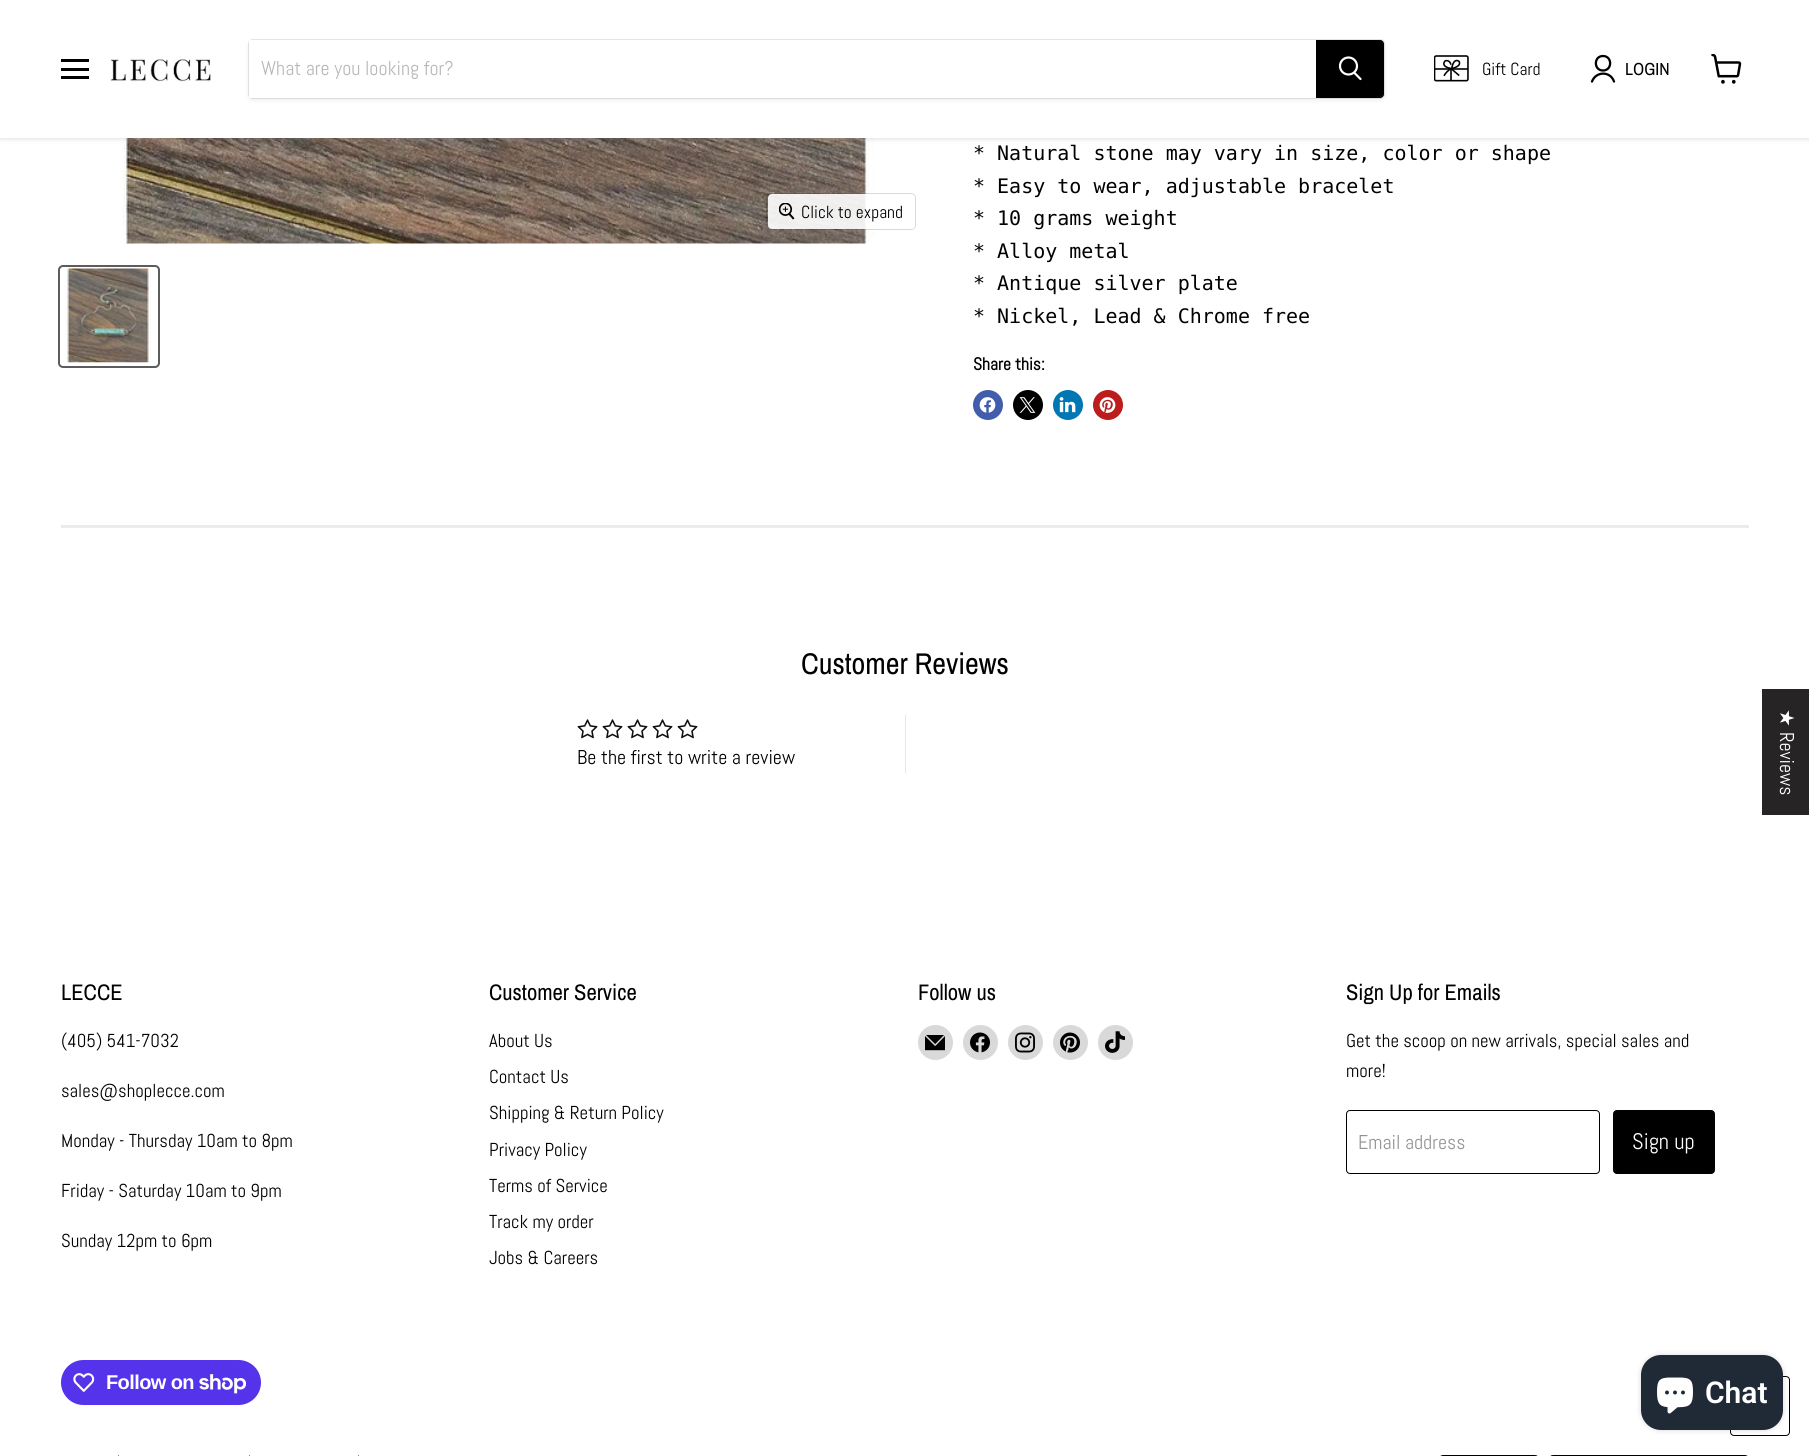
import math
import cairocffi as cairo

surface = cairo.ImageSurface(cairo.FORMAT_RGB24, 1809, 1456)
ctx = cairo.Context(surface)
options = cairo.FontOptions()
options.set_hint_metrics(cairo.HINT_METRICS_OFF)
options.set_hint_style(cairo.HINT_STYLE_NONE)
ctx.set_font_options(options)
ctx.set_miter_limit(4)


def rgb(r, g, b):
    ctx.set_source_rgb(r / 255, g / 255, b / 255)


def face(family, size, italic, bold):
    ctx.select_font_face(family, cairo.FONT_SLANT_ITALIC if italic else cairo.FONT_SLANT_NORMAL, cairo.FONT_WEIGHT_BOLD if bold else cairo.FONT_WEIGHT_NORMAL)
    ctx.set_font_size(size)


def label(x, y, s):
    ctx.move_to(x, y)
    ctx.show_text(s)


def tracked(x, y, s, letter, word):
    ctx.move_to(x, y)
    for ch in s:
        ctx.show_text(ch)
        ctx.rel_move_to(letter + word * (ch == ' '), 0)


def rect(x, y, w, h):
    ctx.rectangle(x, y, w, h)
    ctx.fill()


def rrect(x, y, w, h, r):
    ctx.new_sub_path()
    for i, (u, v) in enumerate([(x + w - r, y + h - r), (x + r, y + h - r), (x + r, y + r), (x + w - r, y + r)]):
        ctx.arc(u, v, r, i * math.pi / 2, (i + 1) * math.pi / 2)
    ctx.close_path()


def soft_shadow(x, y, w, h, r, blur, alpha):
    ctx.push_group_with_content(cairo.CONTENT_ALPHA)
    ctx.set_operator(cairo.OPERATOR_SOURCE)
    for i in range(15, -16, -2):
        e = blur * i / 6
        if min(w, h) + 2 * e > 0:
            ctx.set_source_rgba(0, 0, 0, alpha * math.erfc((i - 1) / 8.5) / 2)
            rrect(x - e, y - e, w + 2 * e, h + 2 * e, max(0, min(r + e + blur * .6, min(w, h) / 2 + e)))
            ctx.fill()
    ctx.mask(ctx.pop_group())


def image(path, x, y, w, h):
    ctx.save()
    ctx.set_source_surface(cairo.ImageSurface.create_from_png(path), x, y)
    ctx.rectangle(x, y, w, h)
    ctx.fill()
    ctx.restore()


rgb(255, 255, 255)
ctx.paint()
image('image3.png', 121, 138, 755, 106)
rgb(128, 128, 128)
soft_shadow(0, 1, 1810, 138, 0, 2.5, 0.25)
rgb(255, 255, 255)
rect(0, 0, 1809, 138)
rgb(0, 0, 0)
rect(61, 59, 28, 3)
rect(61, 68, 28, 3)
rect(61, 76, 28, 3)
image('image0.png', 110, 58, 101, 24)
rgb(128, 128, 128)
soft_shadow(248, 41, 1137, 60, 5, 2, 0.11)
rrect(248.5, 39.5, 1136, 59, 4.5)
ctx.set_source_rgba(0.502, 0.502, 0.502, 0.2)
ctx.set_line_width(1)
ctx.stroke()
rgb(255, 255, 255)
rect(249, 40, 1067, 58)
face('Abel', 20, 0, 0)
rgb(184, 184, 184)
label(261, 75, 'What are you looking for?')
rgb(0, 0, 0)
ctx.new_path()
ctx.move_to(1316.5, 40.5)
ctx.line_to(1380, 40.5)
ctx.curve_to(1382, 40.5, 1383.5, 42, 1383.5, 44)
ctx.line_to(1383.5, 94)
ctx.curve_to(1383.5, 96, 1382, 97.5, 1380, 97.5)
ctx.line_to(1316.5, 97.5)
ctx.close_path()
ctx.fill_preserve()
ctx.stroke()
ctx.new_path()
ctx.move_to(1360.5, 79)
ctx.line_to(1354.5, 73)
rgb(255, 255, 255)
ctx.set_line_width(2.2)
ctx.set_line_cap(cairo.LINE_CAP_ROUND)
ctx.stroke()
ctx.arc(1348.5, 66, 8.5, 0, 2 * math.pi)
ctx.set_line_cap(cairo.LINE_CAP_BUTT)
ctx.stroke()
image('image1.png', 1434, 55, 35, 27)
face('Abel', 17.5, 0, 0)
rgb(0, 0, 0)
label(1482, 75, 'Gift Card')
ctx.new_path()
ctx.move_to(1603, 70.5)
ctx.curve_to(1612.5, 70.5, 1612.5, 56, 1603, 56)
ctx.curve_to(1593.5, 56, 1593.5, 70.5, 1603, 70.5)
ctx.close_path()
ctx.move_to(1614, 81.5)
ctx.curve_to(1610.5, 71, 1596, 71, 1592, 81.5)
ctx.set_line_width(2.3)
ctx.set_line_cap(cairo.LINE_CAP_ROUND)
ctx.set_line_join(cairo.LINE_JOIN_ROUND)
ctx.stroke()
face('Archivo Narrow', 17.5, 0, 0)
label(1625, 75, 'LOGIN')
image('image2.png', 1711, 54, 31, 30)
rrect(766.5, 193.5, 149, 36, 4.5)
ctx.set_source_rgba(0, 0, 0, 0.15)
ctx.set_line_width(1)
ctx.set_line_cap(cairo.LINE_CAP_BUTT)
ctx.set_line_join(cairo.LINE_JOIN_MITER)
ctx.stroke()
ctx.set_source_rgba(1, 1, 1, 0.9)
rrect(768, 194, 147, 35, 4)
ctx.fill()
image('image4.png', 779, 203, 16, 17)
face('Abel', 17.5, 0, 0)
rgb(0, 0, 0)
label(801, 218, 'Click to expand')
rrect(59, 266, 100, 101, 4)
rgb(92, 92, 92)
ctx.set_line_width(2)
ctx.stroke()
image('image5.png', 65, 268, 86, 95)
face('DejaVu Sans Mono', 20, 0, 0)
rgb(0, 0, 0)
label(973, 160, '* Natural stone may vary in size, color or shape')
label(973, 193, '* Easy to wear, adjustable bracelet')
label(973, 225, '* 10 grams weight')
label(973, 258, '* Alloy metal')
label(973, 290, '* Antique silver plate')
label(973, 323, '* Nickel, Lead & Chrome free')
face('Abel', 17.5, 0, 1)
label(973, 370, 'Share this:')
rgb(66, 93, 171)
ctx.new_path()
ctx.arc(988, 405, 15, 0, 2 * math.pi)
ctx.fill()
image('image6.png', 979, 397, 17, 16)
rgb(0, 0, 0)
ctx.arc(1028, 405, 15, 0, 2 * math.pi)
ctx.fill()
image('image7.png', 1019, 397, 17, 16)
rgb(0, 119, 181)
ctx.arc(1068, 405, 15, 0, 2 * math.pi)
ctx.fill()
image('image8.png', 1059, 397, 17, 16)
rgb(189, 28, 28)
ctx.arc(1108, 405, 15, 0, 2 * math.pi)
ctx.fill()
image('image9.png', 1099, 397, 17, 16)
ctx.set_source_rgba(0.502, 0.502, 0.502, 0.16)
rect(61, 525, 1688, 3)
face('Archivo Narrow', 30, 0, 0)
rgb(0, 0, 0)
label(801, 674, 'Customer Reviews')
image('image10.png', 577, 719, 21, 20)
image('image10.png', 602, 719, 21, 20)
image('image10.png', 627, 719, 21, 20)
image('image10.png', 652, 719, 21, 20)
image('image10.png', 677, 719, 21, 20)
face('Abel', 20, 0, 0)
label(577, 764, 'Be the first to write a review')
rgb(231, 231, 231)
rect(905, 715, 1, 58)
rgb(39, 36, 37)
rect(1762, 689, 47, 126)
face('DejaVu Sans', 20, 0, 0)
rgb(255, 255, 255)
ctx.save()
ctx.translate(1780, 709)
ctx.rotate(90 * math.pi / 180)
label(0, 0, '★')
ctx.restore()
face('Abel', 20, 0, 0)
ctx.save()
ctx.translate(1780, 732)
ctx.rotate(90 * math.pi / 180)
label(0, 0, 'Reviews')
ctx.restore()
face('Archivo Narrow', 22.5, 0, 0)
rgb(0, 0, 0)
label(61, 1000, 'LECCE')
face('Abel', 18.75, 0, 0)
label(61, 1047, '(405) 541-7032')
label(61, 1097, 'sales@shoplecce.com')
label(61, 1147, 'Monday - Thursday 10am to 8pm')
label(61, 1197, 'Friday - Saturday 10am to 9pm')
label(61, 1247, 'Sunday 12pm to 6pm')
face('Archivo Narrow', 22.5, 0, 0)
label(489, 1000, 'Customer Service')
face('Abel', 18.75, 0, 0)
label(489, 1047, 'About Us')
label(489, 1083, 'Contact Us')
label(489, 1119, 'Shipping & Return Policy')
label(489, 1156, 'Privacy Policy')
label(489, 1192, 'Terms of Service')
label(489, 1228, 'Track my order')
label(489, 1264, 'Jobs & Careers')
face('Archivo Narrow', 22.5, 0, 0)
label(918, 1000, 'Follow us')
rgb(217, 217, 217)
ctx.new_path()
ctx.arc(935.5, 1042.5, 17.5, 0, 2 * math.pi)
ctx.fill()
image('image11.png', 925, 1035, 20, 16)
ctx.arc(980.5, 1042.5, 17.5, 0, 2 * math.pi)
ctx.fill()
image('image12.png', 970, 1032, 20, 21)
ctx.arc(1025.5, 1042.5, 17.5, 0, 2 * math.pi)
ctx.fill()
image('image13.png', 1015, 1032, 20, 21)
ctx.arc(1070.5, 1042.5, 17.5, 0, 2 * math.pi)
ctx.fill()
image('image14.png', 1060, 1032, 20, 21)
ctx.arc(1115.5, 1042.5, 17.5, 0, 2 * math.pi)
ctx.fill()
image('image15.png', 1105, 1031, 20, 22)
rgb(0, 0, 0)
label(1346, 1000, 'Sign Up for Emails')
face('Abel', 18.75, 0, 0)
label(1346, 1047, 'Get the scoop on new arrivals, special sales and')
label(1346, 1077, 'more!')
rrect(1346.5, 1110.5, 253, 63, 3.5)
ctx.set_line_width(1)
ctx.stroke()
face('Abel', 20, 0, 0)
rgb(148, 148, 148)
label(1358, 1149, 'Email address')
rgb(0, 0, 0)
rrect(1613.5, 1110.5, 101, 63, 3.5)
ctx.fill_preserve()
ctx.stroke()
face('Abel', 22.5, 0, 0)
rgb(255, 255, 255)
label(1632, 1149, 'Sign up')
rgb(84, 51, 235)
rrect(61, 1360, 200, 45, 22.5)
ctx.fill()
image('image16.png', 73, 1373, 22, 19)
face('Liberation Sans', 20, 0, 1)
rgb(255, 255, 255)
tracked(106, 1389, 'Follow on', -0.6, 0)
image('image17.png', 199, 1374, 47, 20)
rgb(128, 128, 128)
rect(118, 1455, 1, 1)
rect(249, 1455, 1, 1)
rect(358, 1455, 1, 1)
rrect(1439.5, 1455.5, 99, 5, 3.5)
rgb(0, 0, 0)
ctx.stroke()
rrect(1549.5, 1455.5, 199, 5, 3.5)
ctx.stroke()
rrect(1730.5, 1376.5, 59, 59, 3.5)
ctx.stroke()
rgb(0, 0, 0)
soft_shadow(1641, 1355, 142, 75, 20, 3, 0.15)
rgb(32, 42, 54)
rrect(1641, 1355, 142, 75, 20)
ctx.fill()
image('image18.png', 1657, 1377, 36, 37)
face('Roboto SemiBold', 30, 0, 0)
rgb(255, 255, 255)
label(1705, 1403, 'Chat')
surface.write_to_png('render.png')
